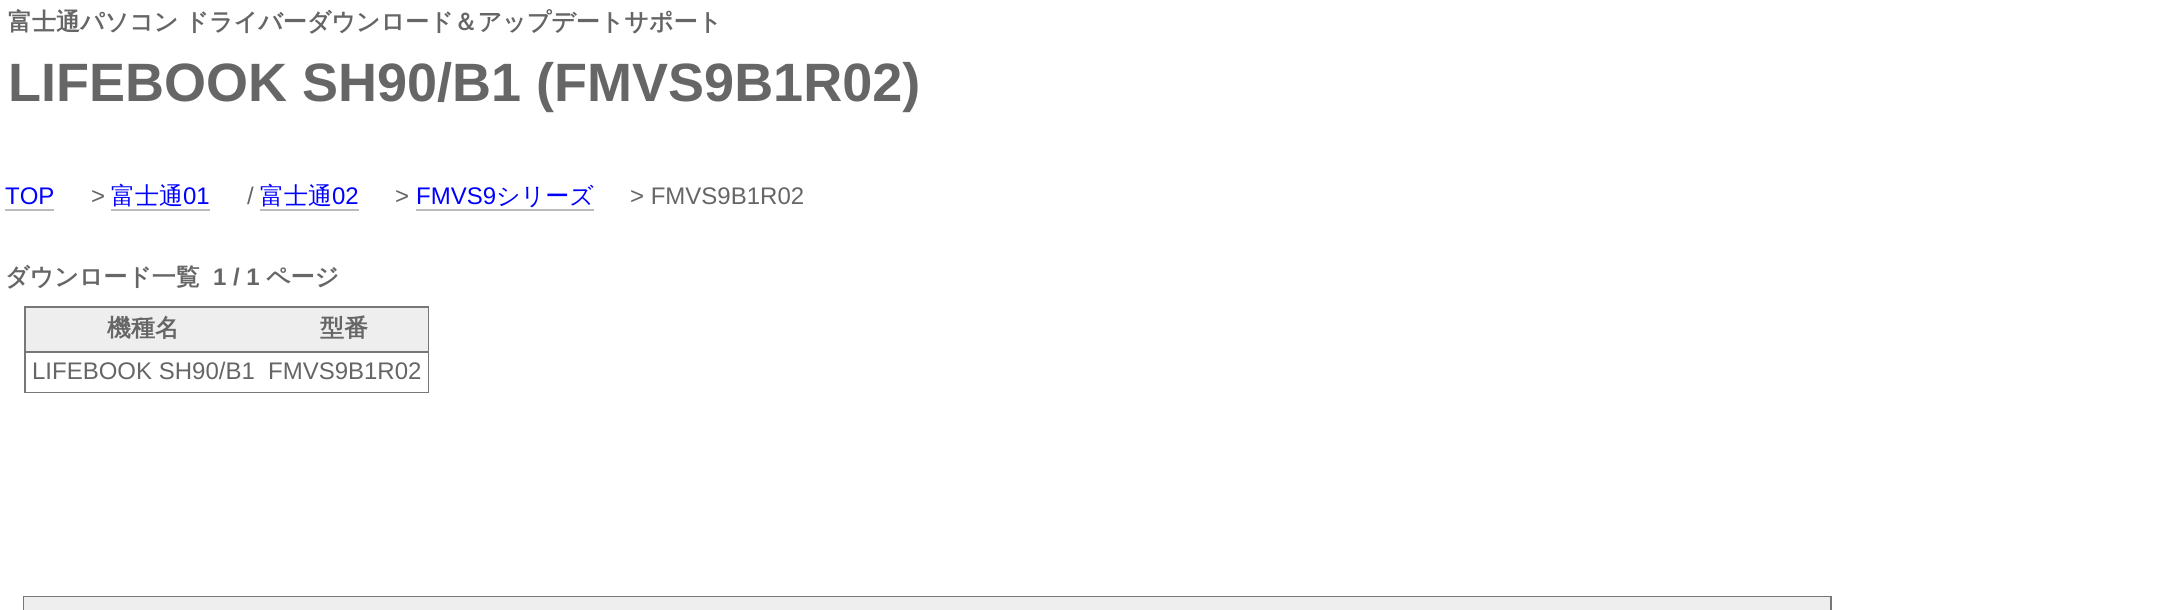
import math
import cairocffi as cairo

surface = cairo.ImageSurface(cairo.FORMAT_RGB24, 2157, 610)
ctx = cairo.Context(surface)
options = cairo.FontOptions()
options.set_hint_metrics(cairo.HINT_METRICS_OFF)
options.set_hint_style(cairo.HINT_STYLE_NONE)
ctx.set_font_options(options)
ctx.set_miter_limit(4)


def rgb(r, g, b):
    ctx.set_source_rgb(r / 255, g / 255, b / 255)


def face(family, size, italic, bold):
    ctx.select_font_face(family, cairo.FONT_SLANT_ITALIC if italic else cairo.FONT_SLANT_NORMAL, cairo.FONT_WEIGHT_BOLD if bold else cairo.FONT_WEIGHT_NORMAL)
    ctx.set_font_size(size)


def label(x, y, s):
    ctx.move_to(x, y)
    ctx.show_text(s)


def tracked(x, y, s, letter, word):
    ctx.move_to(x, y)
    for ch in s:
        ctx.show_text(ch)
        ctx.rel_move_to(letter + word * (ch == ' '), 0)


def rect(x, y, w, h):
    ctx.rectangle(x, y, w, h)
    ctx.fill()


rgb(255, 255, 255)
ctx.paint()
face('WenQuanYi Zen Hei', 24, 0, 1)
rgb(102, 102, 102)
tracked(8, 30, '富士通パソコン ドライバーダウンロード＆アップデートサポート', 0, -1)
face('Liberation Sans', 54, 0, 1)
label(8, 101, 'LIFEBOOK SH90/B1 (FMVS9B1R02)')
face('Liberation Sans', 24, 0, 0)
rgb(0, 0, 255)
label(5, 204, 'TOP')
rgb(187, 187, 187)
rect(5, 209, 49, 2)
rgb(102, 102, 102)
label(91, 204, '>')
face('WenQuanYi Zen Hei Medium', 24, 0, 0)
rgb(0, 0, 255)
label(111, 204, '富士通')
face('Liberation Sans', 24, 0, 0)
label(183, 204, '01')
rgb(187, 187, 187)
rect(111, 209, 99, 2)
rgb(102, 102, 102)
label(247, 204, '/')
face('WenQuanYi Zen Hei Medium', 24, 0, 0)
rgb(0, 0, 255)
label(260, 204, '富士通')
face('Liberation Sans', 24, 0, 0)
label(332, 204, '02')
rgb(187, 187, 187)
rect(260, 209, 99, 2)
rgb(102, 102, 102)
label(395, 204, '>')
rgb(0, 0, 255)
label(416, 204, 'FMVS9')
rgb(187, 187, 187)
rect(416, 209, 178, 2)
face('WenQuanYi Zen Hei Medium', 24, 0, 0)
rgb(0, 0, 255)
label(496, 204, 'シリーズ')
face('Liberation Sans', 24, 0, 0)
rgb(102, 102, 102)
label(630, 204, '> FMVS9B1R02')
face('WenQuanYi Zen Hei', 24, 0, 1)
label(5, 285, 'ダウンロード一覧')
face('Liberation Sans', 24, 0, 1)
label(213, 285, '1 / 1')
face('WenQuanYi Zen Hei', 24, 0, 1)
label(266, 285, 'ページ')
rgb(119, 119, 119)
rect(24, 306, 405, 87)
rgb(238, 238, 238)
rect(26, 308, 402, 43)
rgb(102, 102, 102)
label(107, 336, '機種名')
label(320, 336, '型番')
rgb(255, 255, 255)
rect(26, 353, 402, 39)
face('Liberation Sans', 24, 0, 0)
rgb(102, 102, 102)
label(32, 379, 'LIFEBOOK SH90/B1')
label(268, 379, 'FMVS9B1R02')
rgb(119, 119, 119)
rect(23, 596, 1809, 14)
rgb(238, 238, 238)
rect(24, 597, 1806, 13)
surface.write_to_png('render.png')
